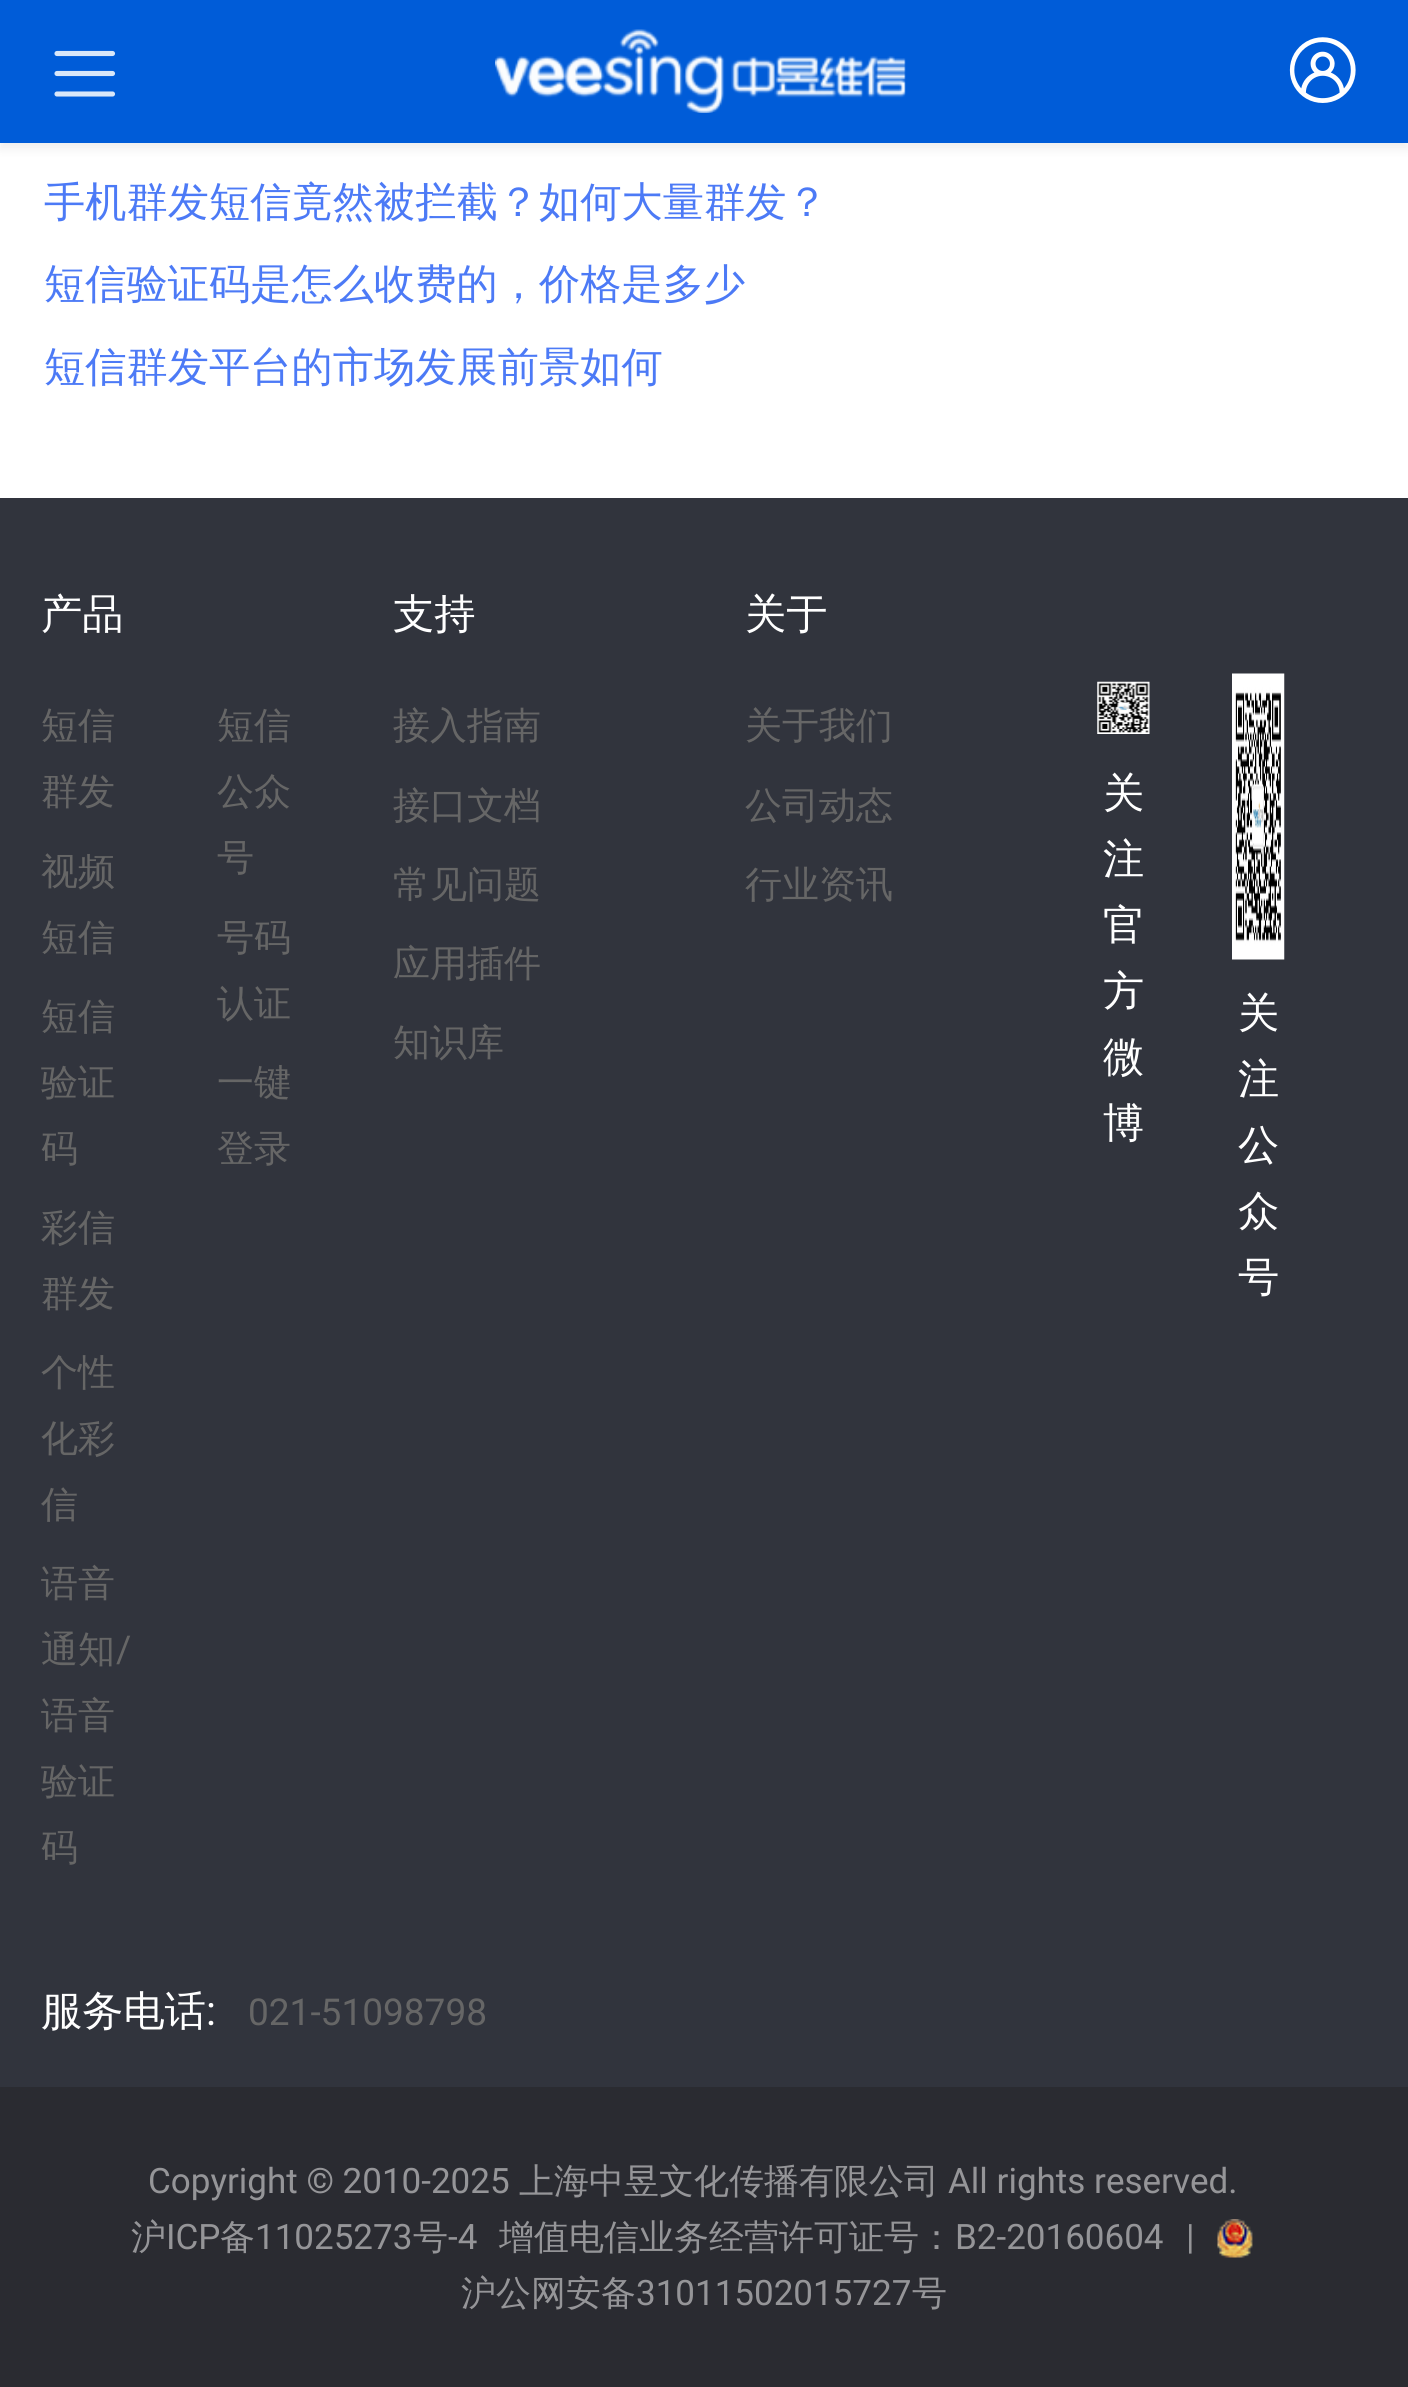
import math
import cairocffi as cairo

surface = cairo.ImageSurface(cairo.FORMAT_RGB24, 1408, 2387)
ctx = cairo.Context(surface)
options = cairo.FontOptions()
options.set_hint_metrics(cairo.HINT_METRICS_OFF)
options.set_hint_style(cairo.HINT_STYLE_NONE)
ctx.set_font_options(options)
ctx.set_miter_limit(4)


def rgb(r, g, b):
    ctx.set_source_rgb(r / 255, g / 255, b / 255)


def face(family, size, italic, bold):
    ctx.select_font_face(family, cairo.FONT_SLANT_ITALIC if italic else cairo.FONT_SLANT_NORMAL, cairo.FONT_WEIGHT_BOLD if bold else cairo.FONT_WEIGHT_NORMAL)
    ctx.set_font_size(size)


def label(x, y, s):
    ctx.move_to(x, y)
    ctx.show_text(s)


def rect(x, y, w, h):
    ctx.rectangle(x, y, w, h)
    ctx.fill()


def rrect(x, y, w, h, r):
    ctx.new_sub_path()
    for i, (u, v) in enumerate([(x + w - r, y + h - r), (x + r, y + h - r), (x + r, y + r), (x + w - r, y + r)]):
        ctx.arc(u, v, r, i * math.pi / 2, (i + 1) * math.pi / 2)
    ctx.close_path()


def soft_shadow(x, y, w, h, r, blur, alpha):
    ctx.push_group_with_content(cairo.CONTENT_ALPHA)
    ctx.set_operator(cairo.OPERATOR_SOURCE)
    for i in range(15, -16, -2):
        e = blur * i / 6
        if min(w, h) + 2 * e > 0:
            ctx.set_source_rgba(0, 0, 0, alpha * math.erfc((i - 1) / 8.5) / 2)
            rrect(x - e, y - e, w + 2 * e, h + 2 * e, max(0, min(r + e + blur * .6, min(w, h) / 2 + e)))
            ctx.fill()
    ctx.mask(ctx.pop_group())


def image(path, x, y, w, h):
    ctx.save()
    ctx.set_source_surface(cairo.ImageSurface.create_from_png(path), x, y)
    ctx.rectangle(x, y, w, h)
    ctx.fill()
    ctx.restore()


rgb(49, 52, 61)
ctx.paint()
rgb(255, 255, 255)
rect(0, 143, 1408, 355)
rgb(0, 0, 0)
soft_shadow(0, 6, 1408, 143, 0, 5.5, 0.07)
rgb(0, 92, 216)
rect(0, 0, 1408, 143)
ctx.new_path()
ctx.move_to(57, 53.5)
ctx.line_to(112.5, 53.5)
ctx.move_to(57, 73.5)
ctx.line_to(112.5, 73.5)
ctx.move_to(57, 94)
ctx.line_to(112.5, 94)
rgb(217, 231, 249)
ctx.set_line_width(5.1)
ctx.set_line_cap(cairo.LINE_CAP_ROUND)
ctx.stroke()
image('image0.png', 495, 29, 411, 84)
image('image1.png', 1289, 37, 67, 66)
face('WenQuanYi Zen Hei Medium', 41.25, 0, 0)
rgb(76, 122, 246)
label(44, 216, '手机群发短信竟然被拦截？如何大量群发？')
label(44, 298, '短信验证码是怎么收费的，价格是多少')
label(44, 381, '短信群发平台的市场发展前景如何')
rgb(255, 255, 255)
label(41, 628, '产品')
face('WenQuanYi Zen Hei Medium', 37, 0, 0)
rgb(102, 102, 102)
label(41, 738, '短信')
label(41, 804, '群发')
label(41, 884, '视频')
label(41, 950, '短信')
label(41, 1029, '短信')
label(41, 1095, '验证')
label(41, 1161, '码')
label(41, 1240, '彩信')
label(41, 1306, '群发')
label(41, 1385, '个性')
label(41, 1451, '化彩')
label(41, 1517, '信')
label(41, 1596, '语音')
label(41, 1662, '通知')
face('Roboto', 37, 0, 0)
label(116, 1662, '/')
face('WenQuanYi Zen Hei Medium', 37, 0, 0)
label(41, 1728, '语音')
label(41, 1794, '验证')
label(41, 1860, '码')
label(217, 738, '短信')
label(217, 804, '公众')
label(217, 870, '号')
label(217, 950, '号码')
label(217, 1016, '认证')
label(217, 1095, '一键')
label(217, 1161, '登录')
face('WenQuanYi Zen Hei Medium', 41.25, 0, 0)
rgb(255, 255, 255)
label(393, 628, '支持')
face('WenQuanYi Zen Hei Medium', 37, 0, 0)
rgb(102, 102, 102)
label(393, 738, '接入指南')
label(393, 818, '接口文档')
label(393, 897, '常见问题')
label(393, 976, '应用插件')
label(393, 1055, '知识库')
face('WenQuanYi Zen Hei Medium', 41.25, 0, 0)
rgb(255, 255, 255)
label(745, 628, '关于')
face('WenQuanYi Zen Hei Medium', 37, 0, 0)
rgb(102, 102, 102)
label(745, 738, '关于我们')
label(745, 818, '公司动态')
label(745, 897, '行业资讯')
image('image2.png', 1097, 681, 53, 53)
face('WenQuanYi Zen Hei Medium', 41.25, 0, 0)
rgb(255, 255, 255)
label(1103, 807, '关')
label(1103, 873, '注')
label(1103, 939, '官')
label(1103, 1005, '方')
label(1103, 1071, '微')
label(1103, 1137, '博')
image('image3.png', 1232, 673, 53, 287)
label(1238, 1027, '关')
label(1238, 1093, '注')
label(1238, 1159, '公')
label(1238, 1225, '众')
label(1238, 1291, '号')
label(41, 2025, '服务电话')
face('Roboto', 41.25, 0, 0)
label(206, 2025, ':')
face('Roboto', 37, 0, 0)
rgb(102, 102, 102)
label(248, 2025, '021-51098798')
rgb(42, 43, 49)
rect(0, 2087, 1408, 300)
face('Roboto', 35, 0, 0)
rgb(149, 149, 152)
label(148, 2193, 'Copyright © 2010-2025')
face('WenQuanYi Zen Hei Medium', 35, 0, 0)
label(519, 2193, '上海中昱文化传播有限公司')
face('Roboto', 35, 0, 0)
label(948, 2193, 'All rights reserved.')
face('WenQuanYi Zen Hei Medium', 35, 0, 0)
label(131, 2249, '沪')
face('Roboto', 35, 0, 0)
label(166, 2249, 'ICP')
face('WenQuanYi Zen Hei Medium', 35, 0, 0)
label(220, 2249, '备')
face('Roboto', 35, 0, 0)
label(255, 2249, '11025273')
face('WenQuanYi Zen Hei Medium', 35, 0, 0)
label(413, 2249, '号')
face('Roboto', 35, 0, 0)
label(448, 2249, '-4')
face('WenQuanYi Zen Hei Medium', 35, 0, 0)
label(499, 2249, '增值电信业务经营许可证号：')
face('Roboto', 35, 0, 0)
label(955, 2249, 'B2-20160604')
label(1186, 2249, '|')
image('image4.png', 1217, 2219, 36, 39)
face('WenQuanYi Zen Hei Medium', 35, 0, 0)
label(461, 2305, '沪公网安备')
face('Roboto', 35, 0, 0)
label(636, 2305, '31011502015727')
face('WenQuanYi Zen Hei Medium', 35, 0, 0)
label(912, 2305, '号')
surface.write_to_png('render.png')
